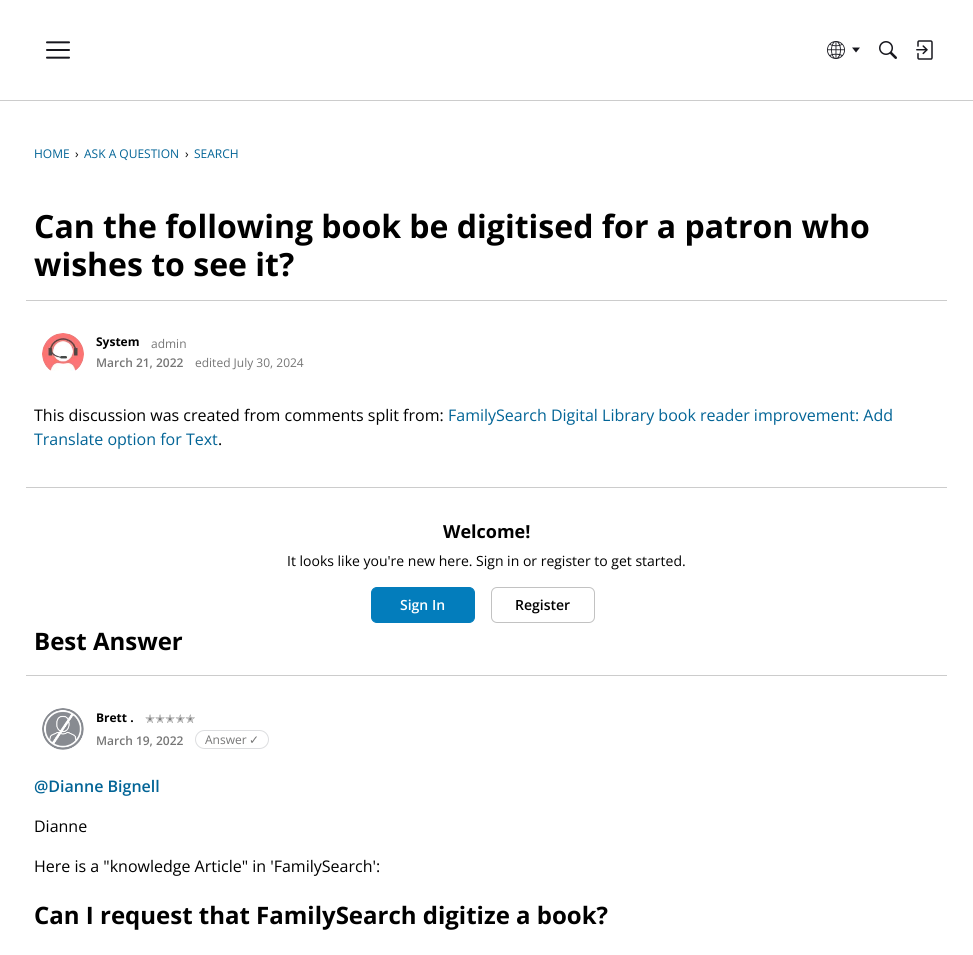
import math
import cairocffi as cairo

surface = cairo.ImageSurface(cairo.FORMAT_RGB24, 973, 955)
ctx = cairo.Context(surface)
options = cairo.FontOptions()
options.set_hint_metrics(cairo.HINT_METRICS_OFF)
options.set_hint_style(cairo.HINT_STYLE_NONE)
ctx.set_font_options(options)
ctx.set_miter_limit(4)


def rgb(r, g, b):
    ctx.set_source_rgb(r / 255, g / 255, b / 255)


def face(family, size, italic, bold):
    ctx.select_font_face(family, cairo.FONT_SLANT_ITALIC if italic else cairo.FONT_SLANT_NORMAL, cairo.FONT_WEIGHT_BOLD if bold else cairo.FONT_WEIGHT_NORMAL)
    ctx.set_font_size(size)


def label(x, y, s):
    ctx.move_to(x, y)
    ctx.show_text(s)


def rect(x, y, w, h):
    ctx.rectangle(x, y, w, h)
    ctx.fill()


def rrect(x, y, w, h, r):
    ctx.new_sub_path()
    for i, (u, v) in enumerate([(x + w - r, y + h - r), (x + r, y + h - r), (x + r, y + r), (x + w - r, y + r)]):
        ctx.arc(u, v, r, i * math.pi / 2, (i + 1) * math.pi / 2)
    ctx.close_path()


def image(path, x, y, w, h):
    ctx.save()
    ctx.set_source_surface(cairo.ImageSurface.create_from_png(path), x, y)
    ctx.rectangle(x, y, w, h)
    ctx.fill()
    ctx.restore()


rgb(255, 255, 255)
ctx.paint()
rgb(204, 204, 204)
rect(0, 100, 973, 1)
image('image0.png', 46, 41, 24, 18)
image('image1.png', 827, 41, 18, 18)
rgb(23, 23, 30)
ctx.new_path()
ctx.move_to(852, 47.5)
ctx.line_to(860, 47.5)
ctx.line_to(856, 52.5)
ctx.close_path()
ctx.fill()
image('image2.png', 879, 41, 18, 18)
image('image3.png', 916, 40, 17, 20)
face('Open Sans', 12, 0, 0)
rgb(2, 100, 150)
label(34, 158, 'HOME')
rgb(0, 0, 0)
label(75, 158, '›')
rgb(2, 100, 150)
label(84, 158, 'ASK A QUESTION')
rgb(0, 0, 0)
label(185, 158, '›')
rgb(2, 100, 150)
label(194, 158, 'SEARCH')
face('Open Sans', 32, 0, 1)
rgb(0, 0, 0)
label(34, 238, 'Can the following book be digitised for a patron who')
label(34, 276, 'wishes to see it?')
rgb(204, 204, 204)
rect(26, 300, 921, 1)
image('image4.png', 42, 333, 42, 38)
face('Open Sans', 12, 0, 1)
rgb(0, 0, 0)
label(96, 346, 'System')
face('Open Sans', 12, 0, 0)
rgb(118, 118, 118)
label(151, 348, 'admin')
face('Open Sans SemiBold', 12, 0, 0)
label(96, 367, 'March 21, 2022')
face('Open Sans', 12, 0, 0)
label(195, 367, 'edited July 30, 2024')
face('Open Sans', 16, 0, 0)
rgb(0, 0, 0)
label(34, 421, 'This discussion was created from comments split from:')
rgb(2, 100, 150)
label(448, 421, 'FamilySearch Digital Library book reader improvement: Add')
label(34, 445, 'Translate option for Text')
rgb(0, 0, 0)
label(218, 445, '.')
rgb(204, 204, 204)
rect(26, 487, 921, 1)
face('Open Sans', 18, 0, 1)
rgb(0, 0, 0)
label(443, 538, 'Welcome!')
face('Open Sans', 14, 0, 0)
label(287, 566, 'It looks like you\'re new here. Sign in or register to get started.')
rgb(3, 125, 188)
rrect(371.5, 587.5, 103, 35, 5.5)
ctx.fill_preserve()
ctx.set_line_width(1)
ctx.stroke()
face('Open Sans SemiBold', 14, 0, 0)
rgb(255, 255, 255)
label(400, 610, 'Sign In')
rrect(491.5, 587.5, 103, 35, 5.5)
rgb(194, 194, 194)
ctx.stroke()
rgb(0, 0, 0)
label(515, 610, 'Register')
face('Open Sans', 24, 0, 1)
label(34, 650, 'Best Answer')
rgb(204, 204, 204)
rect(26, 675, 921, 1)
image('image5.png', 42, 708, 42, 42)
face('Open Sans', 12, 0, 1)
rgb(0, 0, 0)
label(96, 722, 'Brett .')
face('DejaVu Sans', 12, 0, 0)
rgb(118, 118, 118)
label(145, 723, '✭✭✭✭✭')
face('Open Sans SemiBold', 12, 0, 0)
label(96, 745, 'March 19, 2022')
rrect(195.5, 730.5, 73, 18, 9)
rgb(221, 222, 224)
ctx.stroke()
face('Open Sans', 12, 0, 0)
rgb(118, 118, 118)
label(205, 744, 'Answer')
face('DejaVu Sans', 12, 0, 0)
label(249, 744, '✓')
face('Open Sans SemiBold', 16, 0, 0)
rgb(2, 100, 150)
label(34, 792, '@Dianne Bignell')
face('Open Sans', 16, 0, 0)
rgb(0, 0, 0)
label(34, 832, 'Dianne')
label(34, 872, 'Here is a "knowledge Article" in \'FamilySearch\':')
face('Open Sans', 24, 0, 1)
label(34, 924, 'Can I request that FamilySearch digitize a book?')
surface.write_to_png('render.png')
